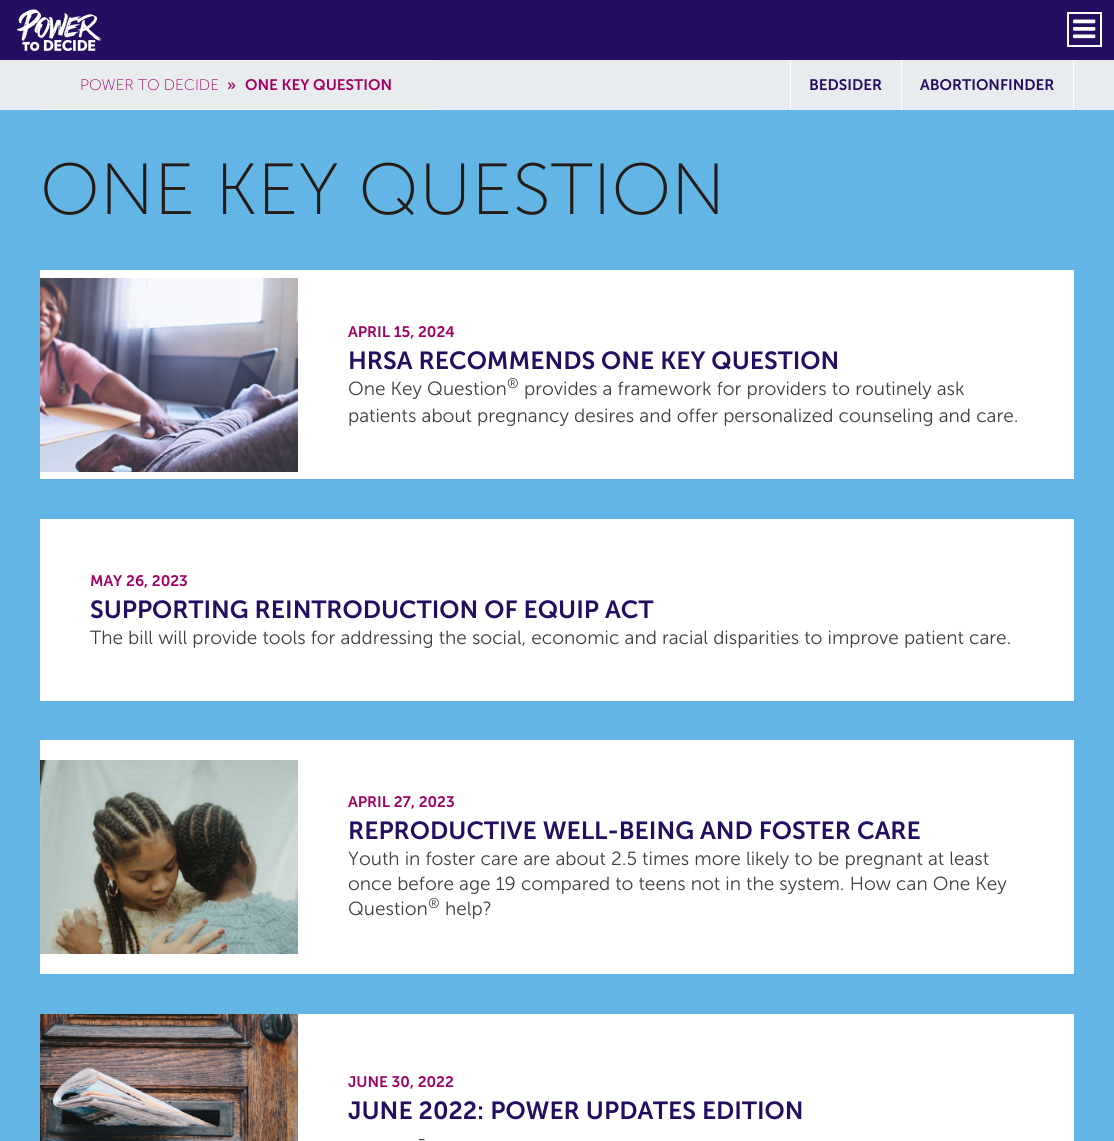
import math
import cairocffi as cairo

surface = cairo.ImageSurface(cairo.FORMAT_RGB24, 1114, 1141)
ctx = cairo.Context(surface)
options = cairo.FontOptions()
options.set_hint_metrics(cairo.HINT_METRICS_OFF)
options.set_hint_style(cairo.HINT_STYLE_NONE)
ctx.set_font_options(options)
ctx.set_miter_limit(4)


def rgb(r, g, b):
    ctx.set_source_rgb(r / 255, g / 255, b / 255)


def face(family, size, italic, bold):
    ctx.select_font_face(family, cairo.FONT_SLANT_ITALIC if italic else cairo.FONT_SLANT_NORMAL, cairo.FONT_WEIGHT_BOLD if bold else cairo.FONT_WEIGHT_NORMAL)
    ctx.set_font_size(size)


def label(x, y, s):
    ctx.move_to(x, y)
    ctx.show_text(s)


def rect(x, y, w, h):
    ctx.rectangle(x, y, w, h)
    ctx.fill()


def image(path, x, y, w, h):
    ctx.save()
    ctx.set_source_surface(cairo.ImageSurface.create_from_png(path), x, y)
    ctx.rectangle(x, y, w, h)
    ctx.fill()
    ctx.restore()


rgb(233, 236, 239)
ctx.paint()
rgb(37, 14, 98)
rect(0, 0, 1114, 60)
image('image0.png', 16, 9, 86, 42)
ctx.rectangle(1068, 13, 33, 33)
rgb(255, 255, 255)
ctx.stroke()
image('image1.png', 1073, 19, 23, 20)
rgb(245, 245, 245)
rect(40, 60, 396, 1)
rect(40, 109, 396, 1)
face('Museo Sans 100 Light', 15.25, 0, 0)
rgb(162, 0, 103)
label(80, 90, 'POWER TO DECIDE')
face('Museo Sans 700 SemiBold', 15.25, 0, 0)
label(227, 90, '»')
label(245, 90, 'ONE KEY QUESTION')
rgb(255, 255, 255)
rect(790, 60, 1, 50)
rgb(37, 14, 98)
label(809, 90, 'BEDSIDER')
rgb(255, 255, 255)
rect(1073, 60, 1, 50)
rect(901, 60, 1, 50)
rgb(37, 14, 98)
label(920, 90, 'ABORTIONFINDER')
rgb(98, 181, 229)
rect(0, 110, 1114, 1031)
face('Museo Sans 100 Light', 72.25, 0, 0)
rgb(37, 28, 24)
label(40, 214, 'ONE KEY QUESTION')
rgb(255, 255, 255)
rect(40, 270, 1034, 209)
image('image2.png', 40, 278, 258, 194)
face('Museo Sans 700 SemiBold', 15.25, 0, 0)
rgb(162, 0, 103)
label(348, 337, 'APRIL 15, 2024')
face('Museo Sans 700 SemiBold', 24.7, 0, 0)
rgb(37, 14, 98)
label(348, 369, 'HRSA RECOMMENDS ONE KEY QUESTION')
face('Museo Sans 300 Light', 19, 0, 0)
rgb(63, 63, 63)
label(348, 395, 'One Key Question')
face('Museo Sans 300 Light', 14, 0, 0)
label(507, 388, '®')
face('Museo Sans 300 Light', 19, 0, 0)
label(524, 395, 'provides a framework for providers to routinely ask')
label(348, 422, 'patients about pregnancy desires and offer personalized counseling and care.')
rgb(255, 255, 255)
rect(40, 519, 1034, 182)
face('Museo Sans 700 SemiBold', 15.25, 0, 0)
rgb(162, 0, 103)
label(90, 586, 'MAY 26, 2023')
face('Museo Sans 700 SemiBold', 24.7, 0, 0)
rgb(37, 14, 98)
label(90, 618, 'SUPPORTING REINTRODUCTION OF EQUIP ACT')
face('Museo Sans 300 Light', 19, 0, 0)
rgb(63, 63, 63)
label(90, 644, 'The bill will provide tools for addressing the social, economic and racial disparities to improve patient care.')
rgb(255, 255, 255)
rect(40, 740, 1034, 234)
image('image3.png', 40, 760, 258, 194)
face('Museo Sans 700 SemiBold', 15.25, 0, 0)
rgb(162, 0, 103)
label(348, 807, 'APRIL 27, 2023')
face('Museo Sans 700 SemiBold', 24.7, 0, 0)
rgb(37, 14, 98)
label(348, 839, 'REPRODUCTIVE WELL-BEING AND FOSTER CARE')
face('Museo Sans 300 Light', 19, 0, 0)
rgb(63, 63, 63)
label(348, 865, 'Youth in foster care are about 2.5 times more likely to be pregnant at least')
label(348, 890, 'once before age 19 compared to teens not in the system. How can One Key')
label(348, 915, 'Question')
face('Museo Sans 300 Light', 14, 0, 0)
label(428, 908, '®')
face('Museo Sans 300 Light', 19, 0, 0)
label(445, 915, 'help?')
rgb(255, 255, 255)
rect(298, 1014, 776, 127)
image('image4.png', 40, 1014, 258, 127)
face('Museo Sans 700 SemiBold', 15.25, 0, 0)
rgb(162, 0, 103)
label(348, 1087, 'JUNE 30, 2022')
face('Museo Sans 700 SemiBold', 24.7, 0, 0)
rgb(37, 14, 98)
label(348, 1119, 'JUNE 2022: POWER UPDATES EDITION')
face('Museo Sans 300 Light', 19, 0, 0)
rgb(63, 63, 63)
label(417, 1145, '-')
surface.write_to_png('render.png')
